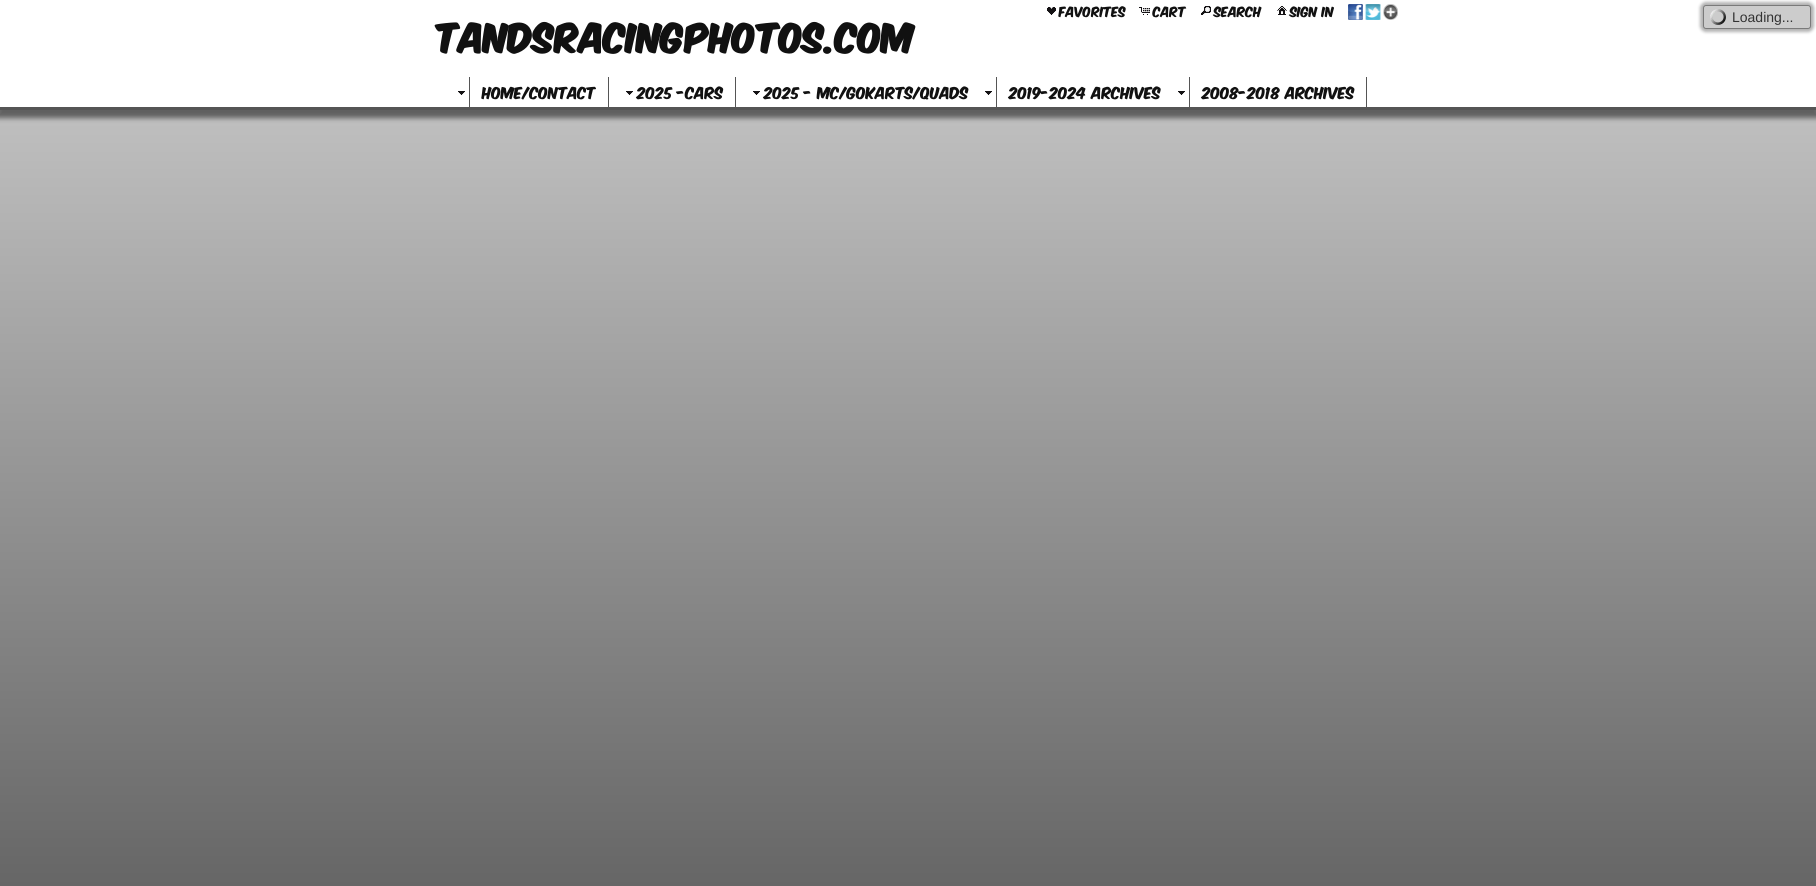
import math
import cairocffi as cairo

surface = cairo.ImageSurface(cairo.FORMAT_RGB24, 1816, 886)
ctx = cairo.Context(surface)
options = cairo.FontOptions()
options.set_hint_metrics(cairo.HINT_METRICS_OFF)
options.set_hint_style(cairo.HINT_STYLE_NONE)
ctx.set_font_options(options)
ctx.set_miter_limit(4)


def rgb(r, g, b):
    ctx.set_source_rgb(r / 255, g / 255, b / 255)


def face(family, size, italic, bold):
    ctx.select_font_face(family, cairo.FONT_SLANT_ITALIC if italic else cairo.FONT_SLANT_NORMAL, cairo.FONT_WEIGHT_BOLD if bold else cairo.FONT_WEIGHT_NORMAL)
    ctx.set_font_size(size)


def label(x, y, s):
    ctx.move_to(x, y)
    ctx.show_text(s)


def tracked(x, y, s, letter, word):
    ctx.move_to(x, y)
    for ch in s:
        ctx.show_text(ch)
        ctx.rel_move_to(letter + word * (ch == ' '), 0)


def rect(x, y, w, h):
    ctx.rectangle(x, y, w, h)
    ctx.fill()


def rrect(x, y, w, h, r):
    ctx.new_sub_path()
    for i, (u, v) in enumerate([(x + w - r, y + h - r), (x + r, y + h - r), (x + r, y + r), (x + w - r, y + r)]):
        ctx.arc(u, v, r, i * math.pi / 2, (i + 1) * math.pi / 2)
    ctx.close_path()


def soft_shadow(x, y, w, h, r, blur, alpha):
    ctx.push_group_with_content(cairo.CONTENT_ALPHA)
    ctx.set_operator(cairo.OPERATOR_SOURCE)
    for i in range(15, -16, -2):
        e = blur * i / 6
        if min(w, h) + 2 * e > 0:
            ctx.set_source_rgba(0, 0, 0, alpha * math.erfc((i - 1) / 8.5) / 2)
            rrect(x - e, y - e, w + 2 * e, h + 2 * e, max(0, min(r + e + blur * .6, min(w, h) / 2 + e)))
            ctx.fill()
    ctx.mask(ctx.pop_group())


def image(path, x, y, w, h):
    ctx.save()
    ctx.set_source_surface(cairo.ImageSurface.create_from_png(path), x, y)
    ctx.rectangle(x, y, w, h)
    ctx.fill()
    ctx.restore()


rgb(255, 255, 255)
ctx.paint()
gradient = cairo.LinearGradient(908, 0, 908, 886)
gradient.add_color_stop_rgba(0, 0.8, 0.8, 0.8, 1)
gradient.add_color_stop_rgba(1, 0.4, 0.4, 0.4, 1)
ctx.set_source(gradient)
rect(0, 110, 1816, 776)
rgb(0, 0, 0)
soft_shadow(-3, 2, 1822, 116, 0, 2.5, 0.5)
rgb(255, 255, 255)
rect(0, 0, 1816, 107)
rgb(85, 85, 85)
rect(0, 107, 1816, 3)
image('image0.png', 1047, 7, 9, 8)
face('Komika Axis', 12, 0, 0)
rgb(17, 17, 17)
label(1059, 17, 'Favorites')
image('image1.png', 1139, 7, 11, 8)
label(1153, 17, 'Cart')
image('image2.png', 1201, 6, 10, 9)
label(1214, 17, 'Search')
image('image3.png', 1277, 6, 10, 9)
label(1290, 17, 'Sign In')
image('image4.png', 1348, 4, 50, 16)
face('Komika Axis', 34, 0, 1)
tracked(436, 53, 'TANDSRACINGPHOTOS.COM', 0.4, 0)
rgb(85, 85, 85)
rect(1366, 77, 1, 30)
image('image5.png', 458, 91, 7, 4)
rect(469, 77, 1, 30)
face('Komika Axis', 14, 0, 0)
rgb(17, 17, 17)
label(482, 99, 'Home/Contact')
rgb(85, 85, 85)
rect(608, 77, 1, 30)
image('image5.png', 626, 91, 7, 4)
rgb(17, 17, 17)
label(637, 99, '2025 -Cars')
rgb(85, 85, 85)
rect(735, 77, 1, 30)
image('image5.png', 753, 91, 7, 4)
rgb(17, 17, 17)
label(764, 99, '2025 - MC/GoKarts/Quads')
image('image5.png', 985, 91, 7, 4)
rgb(85, 85, 85)
rect(996, 77, 1, 30)
rgb(17, 17, 17)
label(1009, 99, '2019-2024 Archives')
image('image5.png', 1178, 91, 7, 4)
rgb(85, 85, 85)
rect(1189, 77, 1, 30)
rgb(17, 17, 17)
label(1202, 99, '2008-2018 Archives')
rgb(0, 0, 0)
soft_shadow(1700, 2, 114, 30, 6, 1.5, 0.3)
rgb(204, 204, 204)
rrect(1703.5, 5.5, 107, 23, 2.5)
ctx.fill_preserve()
rgb(122, 122, 122)
ctx.set_line_width(1)
ctx.stroke()
image('image6.png', 1710, 9, 16, 16)
face('Liberation Sans', 14, 0, 0)
rgb(51, 51, 51)
label(1732, 22, 'Loading...')
surface.write_to_png('render.png')
